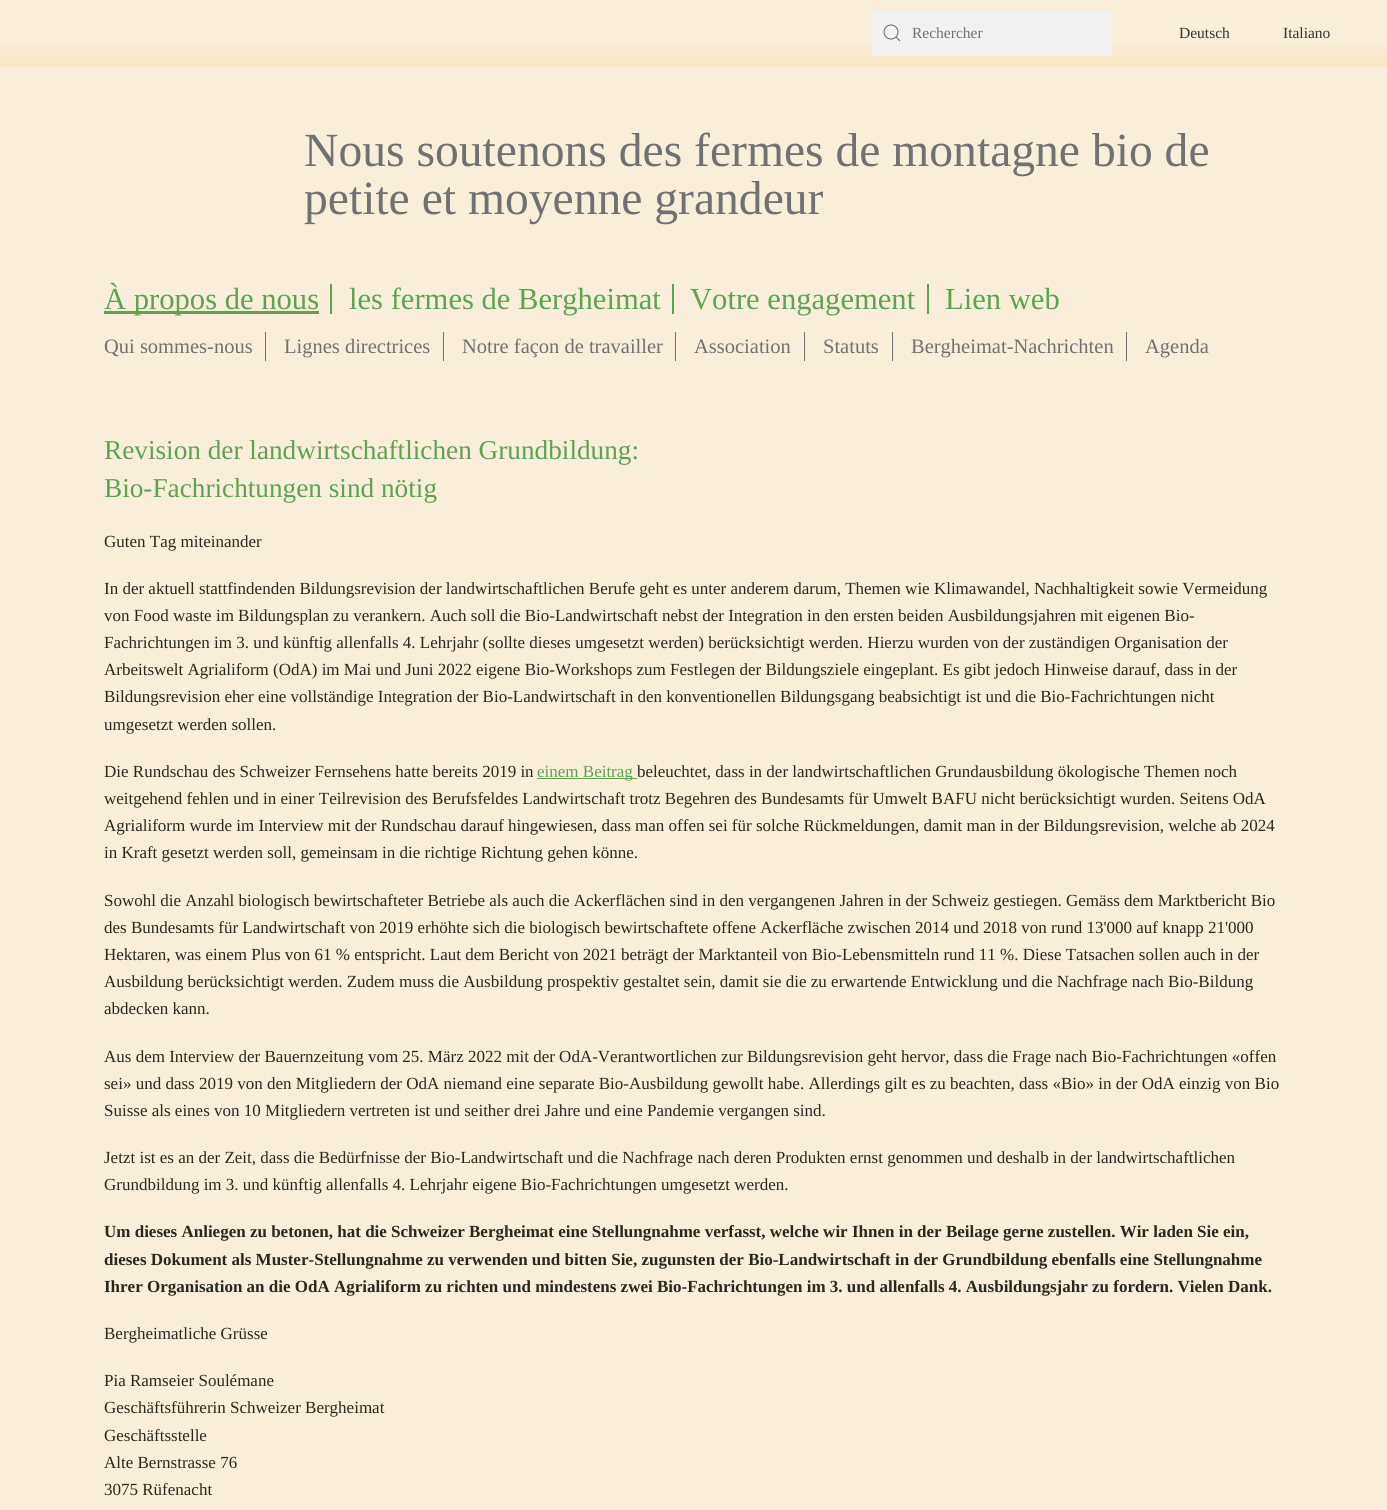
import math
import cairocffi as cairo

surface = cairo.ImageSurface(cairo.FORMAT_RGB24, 1387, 1510)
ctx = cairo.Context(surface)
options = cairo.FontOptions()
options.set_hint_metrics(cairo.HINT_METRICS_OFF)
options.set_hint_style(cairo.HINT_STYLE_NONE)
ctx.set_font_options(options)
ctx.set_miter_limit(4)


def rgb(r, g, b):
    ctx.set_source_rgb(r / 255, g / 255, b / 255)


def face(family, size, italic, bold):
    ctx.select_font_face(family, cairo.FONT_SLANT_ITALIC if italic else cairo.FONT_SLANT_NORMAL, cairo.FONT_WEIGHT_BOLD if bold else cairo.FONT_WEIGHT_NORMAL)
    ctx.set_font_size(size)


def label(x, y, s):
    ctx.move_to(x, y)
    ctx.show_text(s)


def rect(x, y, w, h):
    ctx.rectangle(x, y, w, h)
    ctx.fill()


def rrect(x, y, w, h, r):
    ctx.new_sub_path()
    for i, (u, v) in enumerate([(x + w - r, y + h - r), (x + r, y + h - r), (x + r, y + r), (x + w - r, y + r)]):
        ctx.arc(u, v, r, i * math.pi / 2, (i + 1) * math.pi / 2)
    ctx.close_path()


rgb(248, 238, 218)
ctx.paint()
gradient = cairo.LinearGradient(694, 66, 694, 0)
gradient.add_color_stop_rgba(0, 0.976, 0.906, 0.769, 1)
gradient.add_color_stop_rgba(0.4, 0.973, 0.933, 0.855, 1)
ctx.set_source(gradient)
rect(0, 43, 1387, 23)
rgb(242, 242, 242)
rrect(872, 10, 240, 46, 4)
ctx.fill()
ctx.arc(891, 32, 7, 0, 2 * math.pi)
rgb(112, 113, 115)
ctx.set_line_width(1.1)
ctx.stroke()
ctx.new_path()
ctx.move_to(896, 37)
ctx.line_to(900, 41)
ctx.close_path()
ctx.stroke()
face('Liberation Serif', 15.5, 0, 0)
label(912, 38, 'Rechercher')
rgb(51, 51, 51)
label(1179, 38, 'Deutsch')
label(1283, 38, 'Italiano')
face('Liberation Serif', 47.6, 0, 0)
rgb(112, 113, 115)
label(304, 166, 'Nous soutenons des fermes de montagne bio de')
label(304, 214, 'petite et moyenne grandeur')
rgb(96, 162, 79)
rect(330, 284, 2, 30)
rect(104, 311, 215, 3)
face('Liberation Serif', 30.6, 0, 0)
label(104, 309, 'À propos de nous')
rect(672, 284, 2, 30)
label(349, 309, 'les fermes de Bergheimat')
rect(927, 284, 2, 30)
label(690, 309, 'Votre engagement')
label(945, 309, 'Lien web')
rgb(112, 113, 115)
rect(265, 332, 1, 29)
face('Liberation Serif', 20.5, 0, 0)
label(104, 353, 'Qui sommes-nous')
rect(443, 332, 1, 29)
label(284, 353, 'Lignes directrices')
rect(675, 332, 1, 29)
label(462, 353, 'Notre façon de travailler')
rect(804, 332, 1, 29)
label(694, 353, 'Association')
rect(892, 332, 1, 29)
label(823, 353, 'Statuts')
rect(1126, 332, 1, 29)
label(911, 353, 'Bergheimat-Nachrichten')
label(1145, 353, 'Agenda')
face('Liberation Serif', 27.25, 0, 0)
rgb(96, 162, 79)
label(104, 459, 'Revision der landwirtschaftlichen Grundbildung:')
label(104, 497, 'Bio-Fachrichtungen sind nötig')
face('Liberation Serif', 17, 0, 0)
rgb(41, 40, 31)
label(104, 547, 'Guten Tag miteinander')
label(104, 594, 'In der aktuell stattfindenden Bildungsrevision der landwirtschaftlichen Berufe geht es unter anderem darum, Themen wie Klimawandel, Nachhaltigkeit sowie Vermeidung')
label(104, 621, 'von Food waste im Bildungsplan zu verankern. Auch soll die Bio-Landwirtschaft nebst der Integration in den ersten beiden Ausbildungsjahren mit eigenen Bio-')
label(104, 648, 'Fachrichtungen im 3. und künftig allenfalls 4. Lehrjahr (sollte dieses umgesetzt werden) berücksichtigt werden. Hierzu wurden von der zuständigen Organisation der')
label(104, 675, 'Arbeitswelt Agrialiform (OdA) im Mai und Juni 2022 eigene Bio-Workshops zum Festlegen der Bildungsziele eingeplant. Es gibt jedoch Hinweise darauf, dass in der')
label(104, 702, 'Bildungsrevision eher eine vollständige Integration der Bio-Landwirtschaft in den konventionellen Bildungsgang beabsichtigt ist und die Bio-Fachrichtungen nicht')
label(104, 730, 'umgesetzt werden sollen.')
label(104, 777, 'Die Rundschau des Schweizer Fernsehens hatte bereits 2019 in')
rgb(96, 162, 79)
rect(537, 778, 100, 1)
label(537, 777, 'einem Beitrag')
rgb(41, 40, 31)
label(637, 777, 'beleuchtet, dass in der landwirtschaftlichen Grundausbildung ökologische Themen noch')
label(104, 804, 'weitgehend fehlen und in einer Teilrevision des Berufsfeldes Landwirtschaft trotz Begehren des Bundesamts für Umwelt BAFU nicht berücksichtigt wurden. Seitens OdA')
label(104, 831, 'Agrialiform wurde im Interview mit der Rundschau darauf hingewiesen, dass man offen sei für solche Rückmeldungen, damit man in der Bildungsrevision, welche ab 2024')
label(104, 858, 'in Kraft gesetzt werden soll, gemeinsam in die richtige Richtung gehen könne.')
label(104, 906, 'Sowohl die Anzahl biologisch bewirtschafteter Betriebe als auch die Ackerflächen sind in den vergangenen Jahren in der Schweiz gestiegen. Gemäss dem Marktbericht Bio')
label(104, 933, 'des Bundesamts für Landwirtschaft von 2019 erhöhte sich die biologisch bewirtschaftete offene Ackerfläche zwischen 2014 und 2018 von rund 13\'000 auf knapp 21\'000')
label(104, 960, 'Hektaren, was einem Plus von 61 % entspricht. Laut dem Bericht von 2021 beträgt der Marktanteil von Bio-Lebensmitteln rund 11 %. Diese Tatsachen sollen auch in der')
label(104, 987, 'Ausbildung berücksichtigt werden. Zudem muss die Ausbildung prospektiv gestaltet sein, damit sie die zu erwartende Entwicklung und die Nachfrage nach Bio-Bildung')
label(104, 1014, 'abdecken kann.')
label(104, 1062, 'Aus dem Interview der Bauernzeitung vom 25. März 2022 mit der OdA-Verantwortlichen zur Bildungsrevision geht hervor, dass die Frage nach Bio-Fachrichtungen «offen')
label(104, 1089, 'sei» und dass 2019 von den Mitgliedern der OdA niemand eine separate Bio-Ausbildung gewollt habe. Allerdings gilt es zu beachten, dass «Bio» in der OdA einzig von Bio')
label(104, 1116, 'Suisse als eines von 10 Mitgliedern vertreten ist und seither drei Jahre und eine Pandemie vergangen sind.')
label(104, 1163, 'Jetzt ist es an der Zeit, dass die Bedürfnisse der Bio-Landwirtschaft und die Nachfrage nach deren Produkten ernst genommen und deshalb in der landwirtschaftlichen')
label(104, 1190, 'Grundbildung im 3. und künftig allenfalls 4. Lehrjahr eigene Bio-Fachrichtungen umgesetzt werden.')
face('Liberation Serif', 17, 0, 1)
label(104, 1237, 'Um dieses Anliegen zu betonen, hat die Schweizer Bergheimat eine Stellungnahme verfasst, welche wir Ihnen in der Beilage gerne zustellen. Wir laden Sie ein,')
label(104, 1265, 'dieses Dokument als Muster-Stellungnahme zu verwenden und bitten Sie, zugunsten der Bio-Landwirtschaft in der Grundbildung ebenfalls eine Stellungnahme')
label(104, 1292, 'Ihrer Organisation an die OdA Agrialiform zu richten und mindestens zwei Bio-Fachrichtungen im 3. und allenfalls 4. Ausbildungsjahr zu fordern. Vielen Dank.')
face('Liberation Serif', 17, 0, 0)
label(104, 1339, 'Bergheimatliche Grüsse')
label(104, 1386, 'Pia Ramseier Soulémane')
label(104, 1413, 'Geschäftsführerin Schweizer Bergheimat')
label(104, 1441, 'Geschäftsstelle')
label(104, 1468, 'Alte Bernstrasse 76')
label(104, 1495, '3075 Rüfenacht')
surface.write_to_png('render.png')
